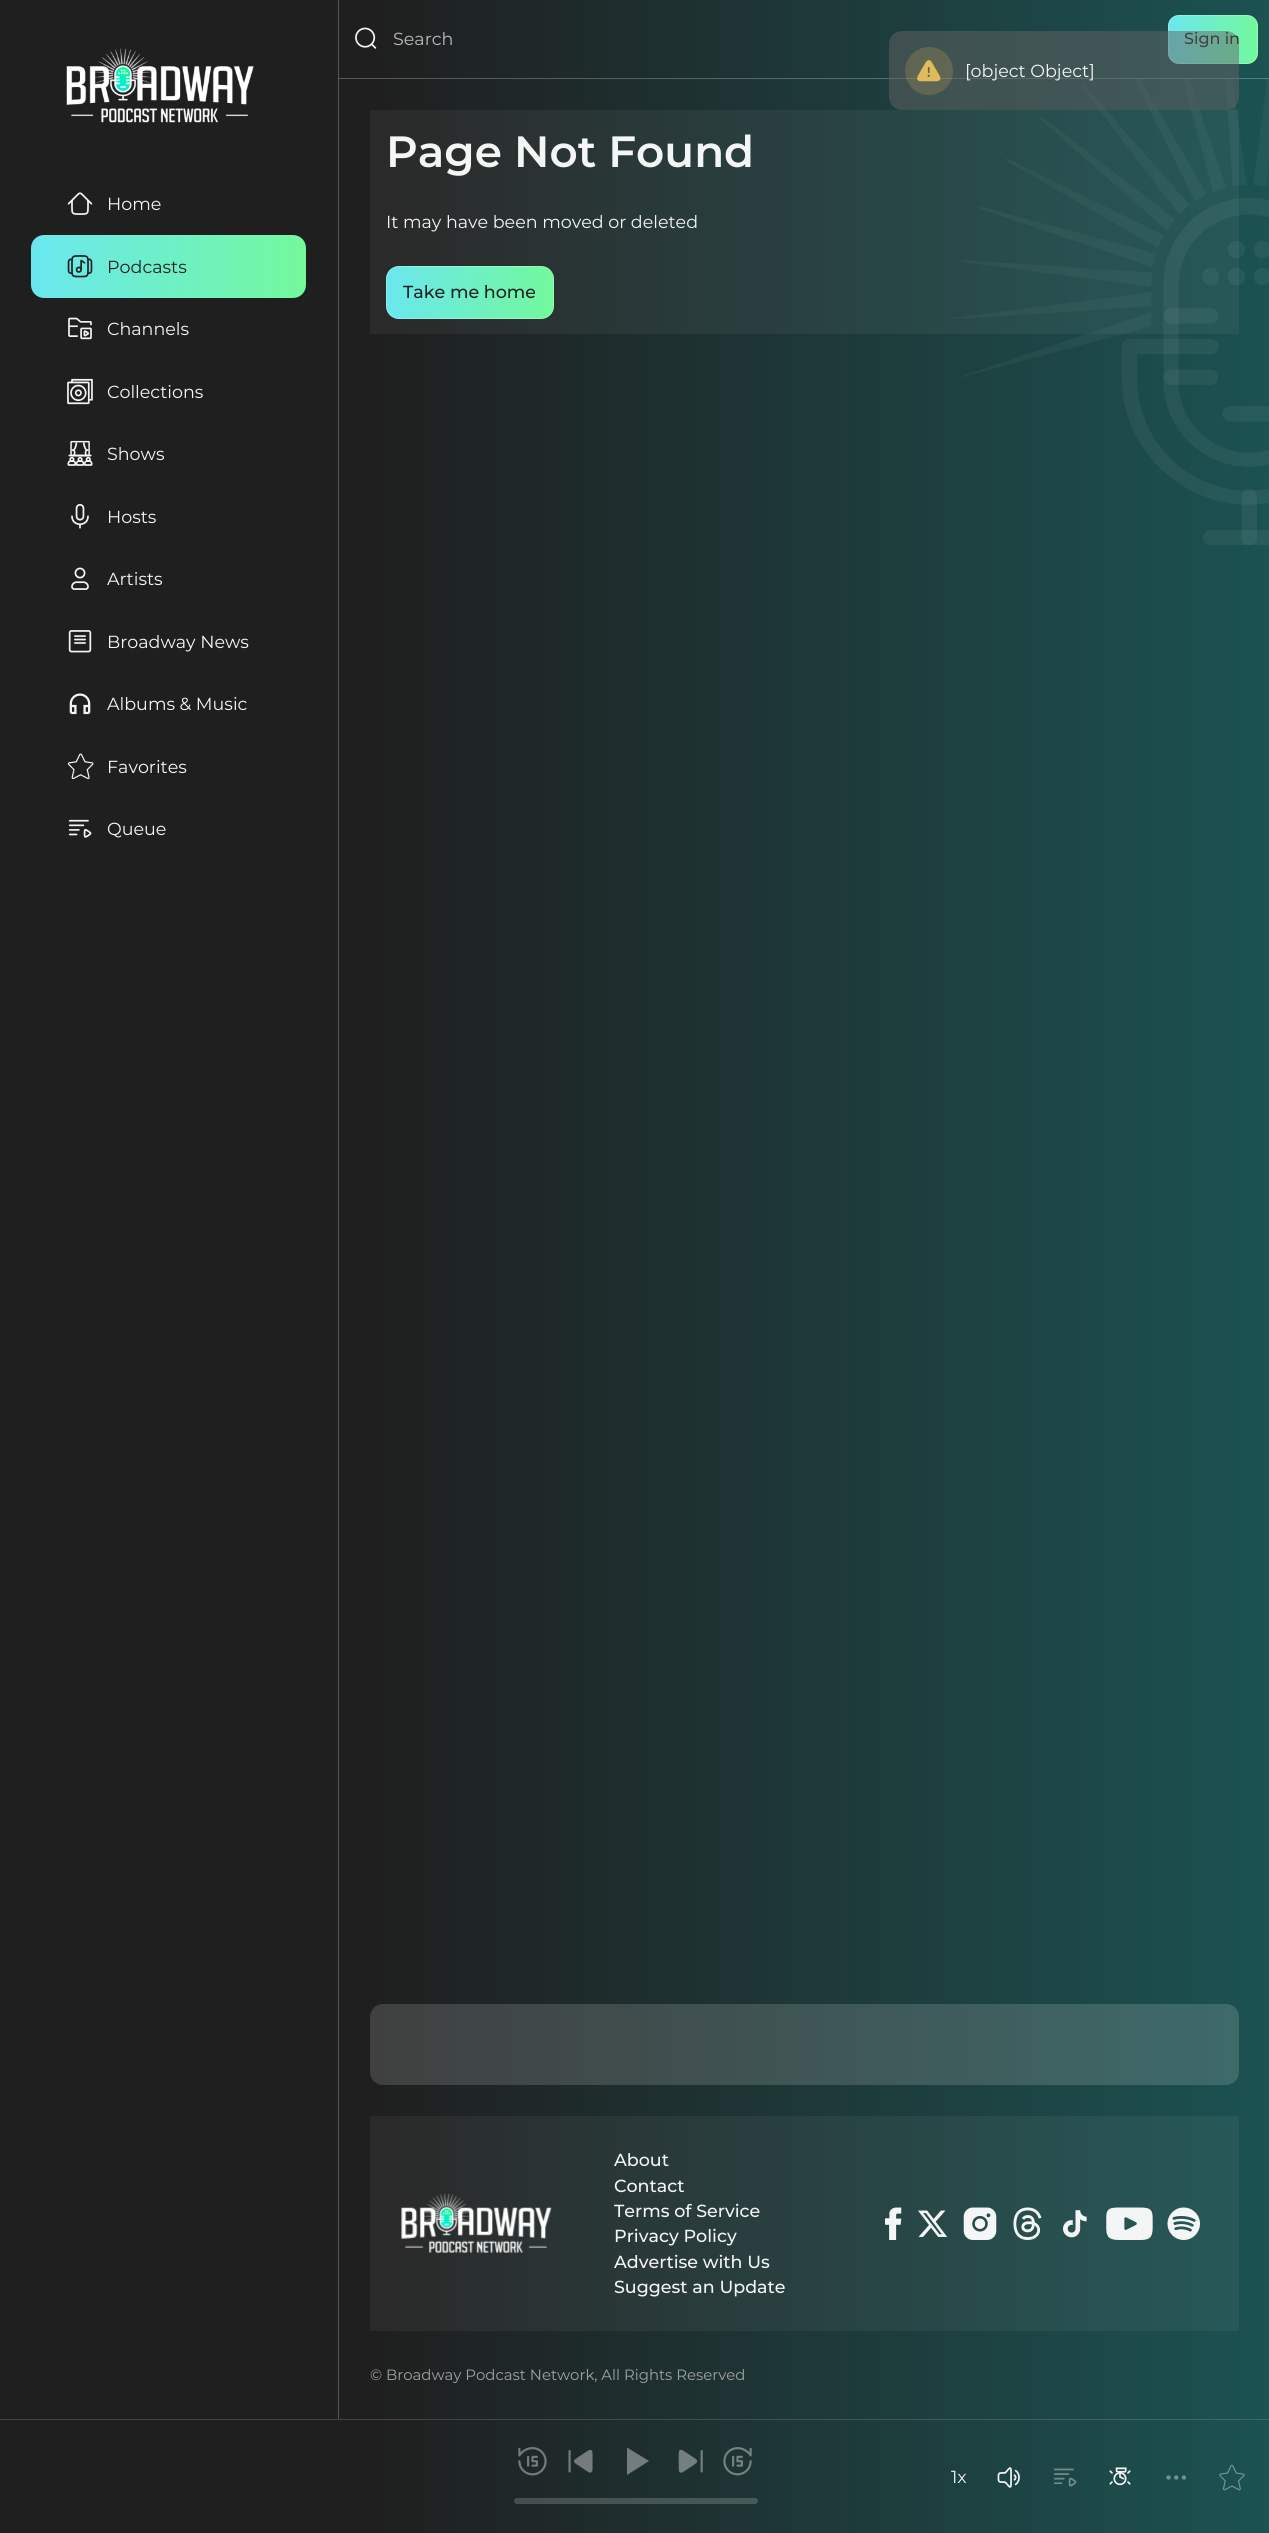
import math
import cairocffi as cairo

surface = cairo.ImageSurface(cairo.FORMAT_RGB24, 1269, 2533)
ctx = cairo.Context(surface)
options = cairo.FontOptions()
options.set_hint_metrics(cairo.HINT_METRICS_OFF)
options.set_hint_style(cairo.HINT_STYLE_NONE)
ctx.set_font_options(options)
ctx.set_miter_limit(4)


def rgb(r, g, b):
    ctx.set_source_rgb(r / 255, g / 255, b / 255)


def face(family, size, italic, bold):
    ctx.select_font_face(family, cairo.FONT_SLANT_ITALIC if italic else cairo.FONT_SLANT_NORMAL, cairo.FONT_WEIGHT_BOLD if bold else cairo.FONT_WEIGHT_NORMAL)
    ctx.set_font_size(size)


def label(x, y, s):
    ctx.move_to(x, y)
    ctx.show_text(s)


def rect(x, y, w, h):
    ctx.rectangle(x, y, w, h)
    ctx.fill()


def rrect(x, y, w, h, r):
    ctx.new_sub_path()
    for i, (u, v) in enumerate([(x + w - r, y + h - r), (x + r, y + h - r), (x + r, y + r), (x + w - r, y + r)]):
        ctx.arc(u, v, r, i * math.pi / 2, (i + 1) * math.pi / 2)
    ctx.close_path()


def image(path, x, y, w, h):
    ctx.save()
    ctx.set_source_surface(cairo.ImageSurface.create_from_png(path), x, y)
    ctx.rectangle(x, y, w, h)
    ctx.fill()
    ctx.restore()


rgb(255, 255, 255)
ctx.paint()
gradient = cairo.LinearGradient(0, 1267, 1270, 1267)
gradient.add_color_stop_rgba(0.3, 0.122, 0.122, 0.122, 1)
gradient.add_color_stop_rgba(1, 0.11, 0.322, 0.322, 1)
ctx.set_source(gradient)
rect(0, 0, 1269, 2533)
gradient = cairo.LinearGradient(0, 1267, 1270, 1267)
gradient.add_color_stop_rgba(0.3, 0.341, 0.341, 0.341, 1)
gradient.add_color_stop_rgba(1, 0.333, 0.49, 0.49, 1)
ctx.set_source(gradient)
rect(339, 78, 930, 1)
gradient = cairo.LinearGradient(0, 1267, 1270, 1267)
gradient.add_color_stop_rgba(0.3, 0.259, 0.259, 0.259, 1)
gradient.add_color_stop_rgba(1, 0.251, 0.408, 0.408, 1)
ctx.set_source(gradient)
rect(0, 2419, 1269, 1)
image('image0.png', 355, 27, 22, 22)
face('Montserrat', 17.5, 0, 0)
rgb(186, 186, 186)
label(393, 45, 'Search')
gradient = cairo.LinearGradient(1168, 39, 1258, 39)
gradient.add_color_stop_rgba(0, 0.416, 0.906, 0.937, 1)
gradient.add_color_stop_rgba(1, 0.451, 0.973, 0.612, 1)
ctx.set_source(gradient)
rrect(1168, 15, 90, 49, 11)
ctx.fill()
rrect(1168.5, 15.5, 89, 48, 10.5)
ctx.set_source_rgba(1, 1, 1, 0.25)
ctx.set_line_width(1)
ctx.stroke()
face('Montserrat Medium', 16, 0, 0)
rgb(34, 34, 34)
label(1184, 44, 'Sign in')
rgb(87, 87, 87)
rect(338, 0, 1, 2419)
image('image1.png', 66, 48, 188, 75)
image('image2.png', 67, 192, 26, 23)
face('Montserrat', 17.5, 0, 0)
rgb(244, 245, 245)
label(107, 210, 'Home')
gradient = cairo.LinearGradient(31, 266, 306, 266)
gradient.add_color_stop_rgba(0, 0.416, 0.906, 0.937, 1)
gradient.add_color_stop_rgba(1, 0.451, 0.973, 0.612, 1)
ctx.set_source(gradient)
rrect(31, 235, 275, 63, 13)
ctx.fill()
image('image3.png', 67, 255, 26, 23)
rgb(34, 34, 34)
label(107, 273, 'Podcasts')
image('image4.png', 68, 317, 24, 23)
rgb(244, 245, 245)
label(107, 335, 'Channels')
image('image5.png', 67, 378, 26, 27)
label(107, 398, 'Collections')
image('image6.png', 67, 440, 26, 26)
label(107, 460, 'Shows')
image('image7.png', 71, 503, 18, 26)
label(107, 523, 'Hosts')
image('image8.png', 71, 567, 18, 23)
label(107, 585, 'Artists')
image('image9.png', 68, 630, 24, 23)
label(107, 648, 'Broadway News')
image('image10.png', 69, 693, 22, 22)
label(107, 710, 'Albums & Music')
image('image11.png', 67, 753, 27, 27)
label(107, 773, 'Favorites')
image('image12.png', 68, 819, 24, 19)
label(107, 835, 'Queue')
image('image13.png', 953, 79, 316, 466)
ctx.set_source_rgba(1, 1, 1, 0.05)
rect(370, 110, 869, 224)
face('Montserrat SemiBold', 43.75, 0, 0)
rgb(244, 245, 245)
label(386, 167, 'Page Not Found')
face('Montserrat', 17.5, 0, 0)
label(386, 228, 'It may have been moved or deleted')
gradient = cairo.LinearGradient(386, 293, 554, 293)
gradient.add_color_stop_rgba(0, 0.416, 0.906, 0.937, 1)
gradient.add_color_stop_rgba(1, 0.451, 0.973, 0.612, 1)
ctx.set_source(gradient)
rrect(386, 266, 168, 53, 13)
ctx.fill()
rrect(386.5, 266.5, 167, 52, 12.5)
ctx.set_source_rgba(1, 1, 1, 0.25)
ctx.stroke()
face('Montserrat Medium', 17.5, 0, 0)
rgb(34, 34, 34)
label(403, 298, 'Take me home')
ctx.set_source_rgba(1, 1, 1, 0.15)
rrect(370, 2004, 869, 81, 13)
ctx.fill()
ctx.set_source_rgba(1, 1, 1, 0.05)
rect(370, 2116, 869, 215)
image('image14.png', 401, 2193, 151, 60)
rgb(244, 245, 245)
label(614, 2166, 'About')
label(614, 2192, 'Contact')
label(614, 2217, 'Terms of Service')
label(614, 2242, 'Privacy Policy')
label(614, 2268, 'Advertise with Us')
label(614, 2293, 'Suggest an Update')
image('image15.png', 885, 2207, 17, 33)
image('image16.png', 918, 2210, 29, 27)
image('image17.png', 963, 2207, 34, 33)
image('image18.png', 1013, 2207, 29, 33)
image('image19.png', 1063, 2210, 24, 28)
image('image20.png', 1106, 2207, 47, 33)
image('image21.png', 1167, 2207, 33, 33)
face('Montserrat', 14.9, 0, 0)
rgb(158, 163, 163)
label(370, 2380, '© Broadway Podcast Network, All Rights Reserved')
image('image22.png', 518, 2447, 29, 29)
image('image23.png', 568, 2449, 25, 24)
rgb(116, 125, 125)
ctx.new_path()
ctx.move_to(627, 2447.5)
ctx.line_to(627, 2475)
ctx.line_to(649, 2461)
ctx.close_path()
ctx.fill()
image('image24.png', 678, 2449, 25, 24)
image('image25.png', 723, 2447, 29, 29)
ctx.set_source_rgba(1, 1, 1, 0.18)
rrect(514, 2498, 244, 6, 3)
ctx.fill()
face('Montserrat', 17.5, 0, 0)
rgb(244, 245, 245)
label(951, 2483, '1x')
image('image26.png', 997, 2467, 23, 21)
image('image27.png', 1053, 2468, 24, 19)
image('image28.png', 1109, 2467, 22, 19)
image('image29.png', 1166, 2475, 21, 5)
image('image30.png', 1219, 2464, 26, 27)
ctx.set_source_rgba(0.392, 0.392, 0.392, 0.5)
rrect(889, 31, 350, 79, 13)
ctx.fill()
image('image31.png', 905, 47, 48, 48)
rgb(244, 245, 245)
label(965, 77, '[object Object]')
surface.write_to_png('render.png')
